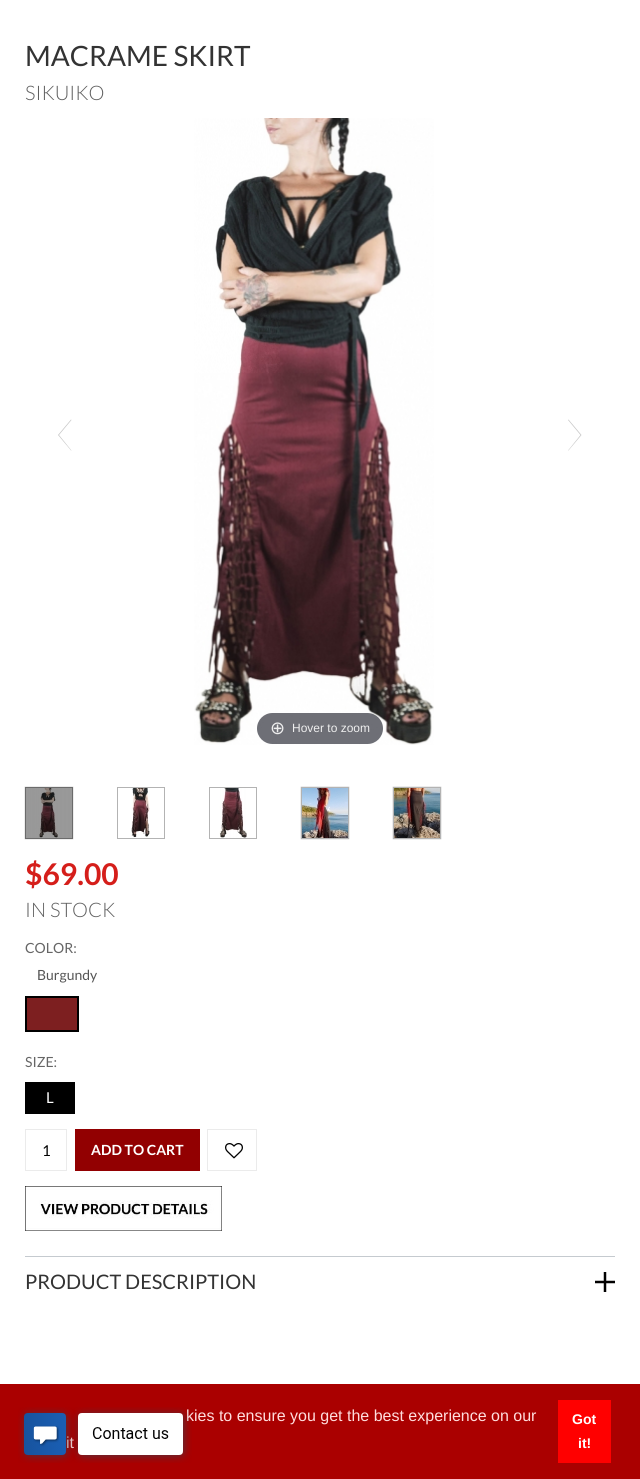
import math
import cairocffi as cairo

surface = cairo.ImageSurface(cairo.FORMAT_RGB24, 640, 1479)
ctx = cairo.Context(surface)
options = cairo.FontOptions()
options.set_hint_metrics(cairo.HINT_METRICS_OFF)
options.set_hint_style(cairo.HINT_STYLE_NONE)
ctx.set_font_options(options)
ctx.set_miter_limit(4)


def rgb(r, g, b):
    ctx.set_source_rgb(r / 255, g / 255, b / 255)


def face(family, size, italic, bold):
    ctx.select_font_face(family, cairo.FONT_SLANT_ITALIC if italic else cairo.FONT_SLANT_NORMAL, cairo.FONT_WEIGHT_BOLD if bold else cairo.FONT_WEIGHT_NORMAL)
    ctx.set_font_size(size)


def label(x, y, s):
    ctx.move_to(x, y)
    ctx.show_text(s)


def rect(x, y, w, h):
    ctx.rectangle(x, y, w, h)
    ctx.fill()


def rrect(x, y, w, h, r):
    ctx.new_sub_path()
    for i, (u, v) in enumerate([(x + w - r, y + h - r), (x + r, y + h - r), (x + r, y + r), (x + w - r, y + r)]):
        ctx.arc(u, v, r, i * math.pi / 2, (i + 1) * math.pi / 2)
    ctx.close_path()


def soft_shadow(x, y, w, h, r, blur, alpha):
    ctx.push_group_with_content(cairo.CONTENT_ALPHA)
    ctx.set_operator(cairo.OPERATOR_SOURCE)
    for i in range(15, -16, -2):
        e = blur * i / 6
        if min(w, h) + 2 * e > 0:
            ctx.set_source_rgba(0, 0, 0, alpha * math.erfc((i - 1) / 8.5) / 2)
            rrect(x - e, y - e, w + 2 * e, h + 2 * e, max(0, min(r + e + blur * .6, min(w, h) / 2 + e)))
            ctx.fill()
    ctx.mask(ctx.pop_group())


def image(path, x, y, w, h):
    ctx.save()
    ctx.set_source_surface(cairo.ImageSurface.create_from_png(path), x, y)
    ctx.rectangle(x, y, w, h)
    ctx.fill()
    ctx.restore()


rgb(255, 255, 255)
ctx.paint()
face('Lato', 28, 0, 0)
rgb(51, 51, 51)
label(25, 66, 'MACRAME SKIRT')
face('Lato Light', 20, 0, 0)
rgb(95, 95, 95)
label(25, 100, 'SIKUIKO')
image('image0.png', 194, 118, 240, 627)
rgb(199, 199, 199)
ctx.new_path()
ctx.move_to(58, 435)
ctx.line_to(71, 419.5)
ctx.line_to(71.5, 420)
ctx.line_to(59, 435)
ctx.line_to(71.5, 450.5)
ctx.line_to(71, 450.5)
ctx.close_path()
ctx.fill()
ctx.new_path()
ctx.move_to(581.5, 435)
ctx.line_to(568.5, 450.5)
ctx.line_to(568, 450.5)
ctx.line_to(580.5, 435)
ctx.line_to(568, 420)
ctx.line_to(568.5, 419.5)
ctx.close_path()
ctx.fill()
ctx.set_source_rgba(0.192, 0.2, 0.239, 0.7)
rrect(257, 713, 126, 31, 15.5)
ctx.fill()
face('DejaVu Sans', 18, 0, 0)
rgb(238, 238, 238)
label(270, 734, '⊕')
face('Liberation Sans', 12, 0, 0)
label(292, 732, 'Hover to zoom')
rgb(0, 0, 0)
soft_shadow(25, 787, 48, 52, 0, 0.5, 0.3)
ctx.rectangle(25.5, 787.5, 47, 51)
rgb(107, 107, 107)
ctx.set_line_width(1)
ctx.stroke()
image('image1.png', 26, 788, 46, 50)
ctx.rectangle(117.5, 787.5, 47, 51)
rgb(179, 179, 179)
ctx.stroke()
image('image2.png', 131, 788, 19, 50)
ctx.rectangle(209.5, 787.5, 47, 51)
ctx.stroke()
image('image3.png', 219, 788, 28, 50)
rgb(0, 0, 0)
soft_shadow(301, 787, 48, 52, 0, 0.5, 0.3)
ctx.rectangle(301.5, 787.5, 47, 51)
rgb(179, 179, 179)
ctx.stroke()
image('image4.png', 302, 788, 46, 50)
rgb(0, 0, 0)
soft_shadow(393, 787, 48, 52, 0, 0.5, 0.3)
ctx.rectangle(393.5, 787.5, 47, 51)
rgb(179, 179, 179)
ctx.stroke()
image('image5.png', 394, 788, 46, 50)
face('Lato', 30, 0, 1)
rgb(213, 30, 26)
label(25, 885, '$69.00')
face('Lato Light', 20, 0, 0)
rgb(95, 95, 95)
label(25, 917, 'IN STOCK')
face('Lato', 14, 0, 0)
rgb(102, 102, 102)
label(25, 953, 'COLOR:')
rgb(85, 85, 85)
label(37, 980, 'Burgundy')
ctx.rectangle(26, 997, 52, 34)
rgb(0, 0, 0)
ctx.set_line_width(2)
ctx.stroke()
rgb(125, 31, 32)
rect(27, 998, 50, 32)
rgb(102, 102, 102)
label(25, 1067, 'SIZE:')
rgb(0, 0, 0)
rect(25, 1082, 50, 32)
face('Lato', 15, 0, 0)
rgb(255, 255, 255)
label(46, 1103, 'L')
ctx.rectangle(25.5, 1129.5, 41, 41)
rgb(235, 235, 235)
ctx.set_line_width(1)
ctx.stroke()
rgb(0, 0, 0)
label(42, 1156, '1')
rgb(146, 0, 1)
rect(75, 1129, 125, 42)
face('Lato', 14, 0, 1)
rgb(255, 255, 255)
label(91, 1155, 'ADD TO CART')
ctx.rectangle(207.5, 1129.5, 49, 41)
rgb(235, 235, 235)
ctx.stroke()
image('image6.png', 225, 1143, 18, 16)
image('image7.png', 25, 1186, 197, 45)
rgb(197, 202, 207)
rect(25, 1256, 590, 1)
face('Lato', 20, 0, 0)
rgb(51, 51, 51)
label(25, 1289, 'PRODUCT DESCRIPTION')
image('image8.png', 595, 1272, 20, 20)
rgb(170, 0, 0)
rect(0, 1384, 640, 95)
face('Liberation Sans', 16, 0, 0)
rgb(255, 221, 221)
label(186, 1421, 'kies to ensure you get the best experience on our')
label(66, 1448, 'it')
image('image9.png', 18, 1407, 174, 56)
rgb(255, 0, 0)
rect(558, 1400, 53, 63)
face('Liberation Sans', 14, 0, 1)
rgb(255, 255, 255)
label(572, 1424, 'Got')
label(578, 1448, 'it!')
surface.write_to_png('render.png')
